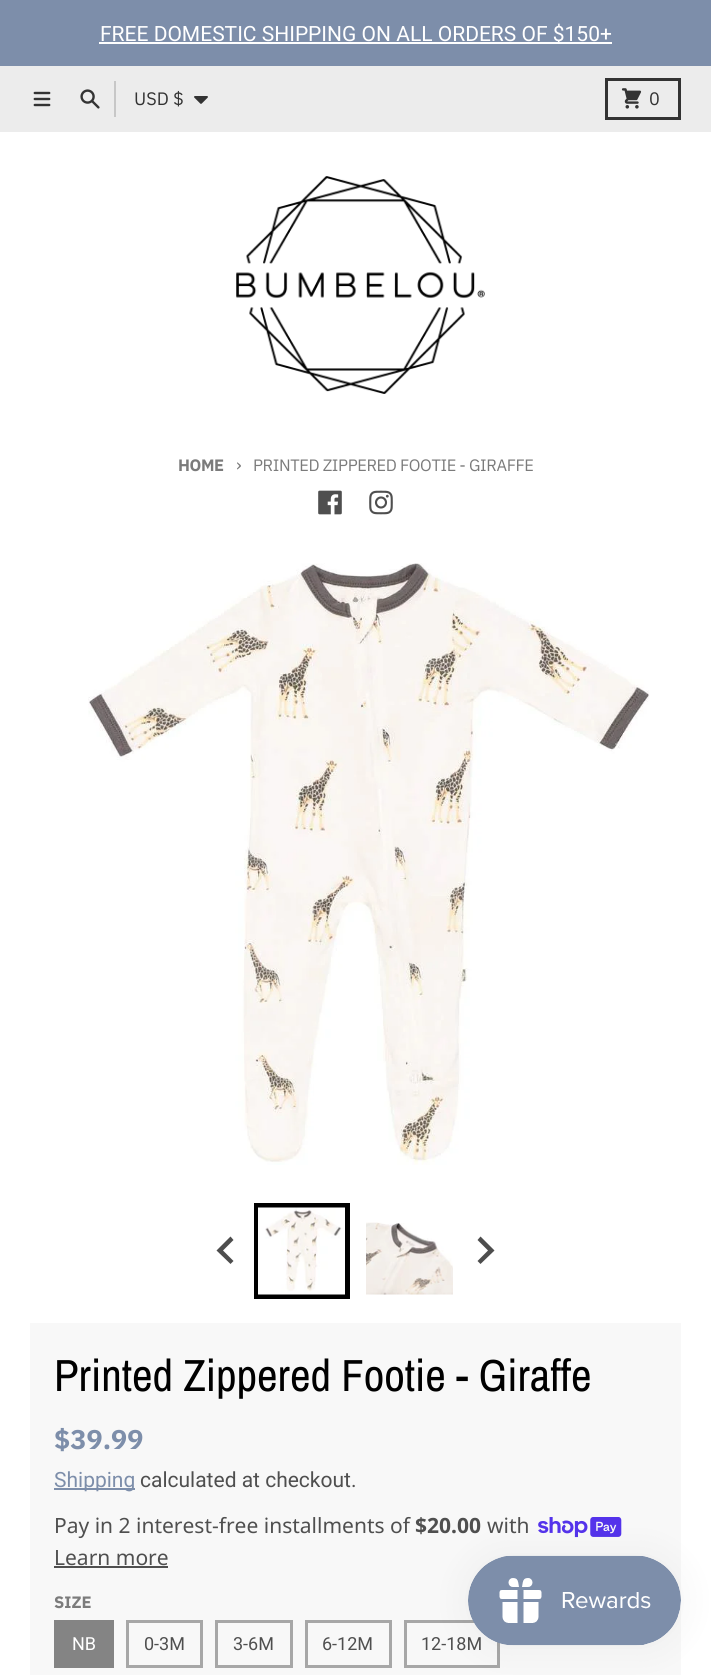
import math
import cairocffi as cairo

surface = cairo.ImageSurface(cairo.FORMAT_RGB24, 711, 1675)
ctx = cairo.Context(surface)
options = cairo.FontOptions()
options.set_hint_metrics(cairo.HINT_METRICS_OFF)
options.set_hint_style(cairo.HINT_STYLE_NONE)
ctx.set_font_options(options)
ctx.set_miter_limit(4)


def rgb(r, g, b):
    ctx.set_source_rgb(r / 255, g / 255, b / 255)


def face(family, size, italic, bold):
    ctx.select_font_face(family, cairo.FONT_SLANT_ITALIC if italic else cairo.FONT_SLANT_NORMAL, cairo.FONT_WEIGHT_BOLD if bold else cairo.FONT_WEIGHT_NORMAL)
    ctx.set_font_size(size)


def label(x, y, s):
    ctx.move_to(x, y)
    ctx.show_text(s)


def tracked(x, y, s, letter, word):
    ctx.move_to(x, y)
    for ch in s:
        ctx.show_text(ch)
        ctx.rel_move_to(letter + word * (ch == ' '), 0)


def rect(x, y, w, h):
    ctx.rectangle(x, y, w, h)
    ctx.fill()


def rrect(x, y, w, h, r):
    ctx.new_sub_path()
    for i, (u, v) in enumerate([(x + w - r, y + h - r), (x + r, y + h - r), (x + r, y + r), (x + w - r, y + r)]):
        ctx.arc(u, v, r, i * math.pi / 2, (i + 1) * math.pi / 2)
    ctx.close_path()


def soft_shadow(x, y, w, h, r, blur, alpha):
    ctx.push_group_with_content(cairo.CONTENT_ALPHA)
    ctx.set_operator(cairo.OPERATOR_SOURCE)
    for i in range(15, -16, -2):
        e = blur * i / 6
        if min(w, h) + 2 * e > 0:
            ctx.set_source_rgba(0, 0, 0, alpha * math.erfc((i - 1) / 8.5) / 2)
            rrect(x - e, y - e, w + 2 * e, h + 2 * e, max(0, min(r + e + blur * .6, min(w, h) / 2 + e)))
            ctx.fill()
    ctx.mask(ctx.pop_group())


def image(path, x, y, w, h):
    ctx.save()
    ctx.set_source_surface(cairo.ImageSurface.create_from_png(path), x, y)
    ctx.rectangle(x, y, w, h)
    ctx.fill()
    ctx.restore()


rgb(236, 236, 236)
ctx.paint()
rgb(125, 142, 170)
rect(0, 0, 711, 66)
rgb(255, 255, 255)
rect(99, 42, 513, 2)
face('Roboto', 21, 0, 0)
label(100, 41, 'FREE DOMESTIC SHIPPING ON ALL ORDERS OF $150+')
image('image0.png', 33, 91, 18, 16)
image('image1.png', 80, 89, 20, 20)
rgb(199, 199, 199)
rect(114, 81, 2, 36)
face('IBM Plex Sans', 18, 0, 0)
rgb(51, 51, 51)
label(134, 105, 'USD $')
image('image2.png', 194, 96, 14, 8)
ctx.rectangle(606.5, 79.5, 73, 39)
ctx.set_line_width(3)
ctx.stroke()
image('image3.png', 621, 88, 21, 21)
label(649, 105, '0')
rgb(255, 255, 255)
rect(0, 132, 711, 1543)
image('image4.png', 236, 176, 249, 218)
face('IBM Plex Sans', 16.5, 0, 1)
rgb(123, 123, 123)
tracked(178, 471, 'HOME', -0.4, 0)
face('IBM Plex Sans', 18, 0, 0)
tracked(236, 471, '›', -0.4, 0)
face('IBM Plex Sans', 16.5, 0, 0)
tracked(253, 471, 'PRINTED ZIPPERED FOOTIE - GIRAFFE', -0.4, 0)
image('image5.png', 318, 490, 24, 25)
image('image6.png', 369, 490, 24, 25)
image('image7.png', 88, 563, 562, 602)
ctx.rectangle(256.5, 1205.5, 91, 91)
rgb(0, 0, 0)
ctx.set_line_width(5)
ctx.stroke()
image('image8.png', 258, 1207, 87, 88)
image('image9.png', 366, 1222, 87, 73)
rgb(77, 77, 77)
ctx.new_path()
ctx.move_to(230.5, 1236.5)
ctx.line_to(233.5, 1240)
ctx.line_to(223, 1250.5)
ctx.line_to(233.5, 1261)
ctx.line_to(230.5, 1264)
ctx.line_to(216.5, 1250.5)
ctx.close_path()
ctx.fill()
ctx.new_path()
ctx.move_to(480.5, 1236.5)
ctx.line_to(477.5, 1240)
ctx.line_to(488, 1250.5)
ctx.line_to(477.5, 1261)
ctx.line_to(480.5, 1264)
ctx.line_to(494.5, 1250.5)
ctx.close_path()
ctx.fill()
rgb(248, 248, 248)
rect(30, 1323, 651, 352)
face('Archivo Narrow', 45, 0, 0)
rgb(0, 0, 0)
label(54, 1391, 'Printed Zippered Footie - Giraffe')
face('IBM Plex Sans', 27, 0, 1)
rgb(125, 142, 170)
label(54, 1449, '$39.99')
rect(54, 1488, 81, 2)
face('Roboto', 21, 0, 0)
label(54, 1487, 'Shipping')
rgb(79, 79, 79)
label(140, 1487, 'calculated at checkout.')
face('Noto Sans', 21, 0, 0)
label(54, 1533, 'Pay in 2 interest-free installments of')
face('Noto Sans', 21, 0, 1)
label(415, 1533, '$20.00')
face('Noto Sans', 21, 0, 0)
label(487, 1533, 'with')
image('image10.png', 538, 1517, 84, 21)
label(54, 1565, 'Learn more')
rect(54, 1566, 114, 2)
face('IBM Plex Sans', 16.5, 0, 1)
rgb(123, 123, 123)
label(54, 1608, 'SIZE')
rgb(132, 132, 132)
rect(54, 1620, 60, 48)
face('Roboto', 18, 0, 0)
rgb(255, 255, 255)
label(72, 1650, 'NB')
ctx.rectangle(127.5, 1621.5, 74, 45)
rgb(167, 167, 167)
ctx.set_line_width(3)
ctx.stroke()
rgb(79, 79, 79)
label(144, 1650, '0-3M')
ctx.rectangle(216.5, 1621.5, 75, 45)
rgb(167, 167, 167)
ctx.stroke()
rgb(79, 79, 79)
label(233, 1650, '3-6M')
ctx.rectangle(306.5, 1621.5, 84, 45)
rgb(167, 167, 167)
ctx.stroke()
rgb(79, 79, 79)
label(322, 1650, '6-12M')
ctx.rectangle(405.5, 1621.5, 93, 45)
rgb(167, 167, 167)
ctx.stroke()
rgb(79, 79, 79)
label(421, 1650, '12-18M')
rgb(0, 0, 0)
soft_shadow(468, 1556, 213, 90, 45, 19, 0.05)
image('image11.png', 468, 1555, 213, 91)
surface.write_to_png('render.png')
